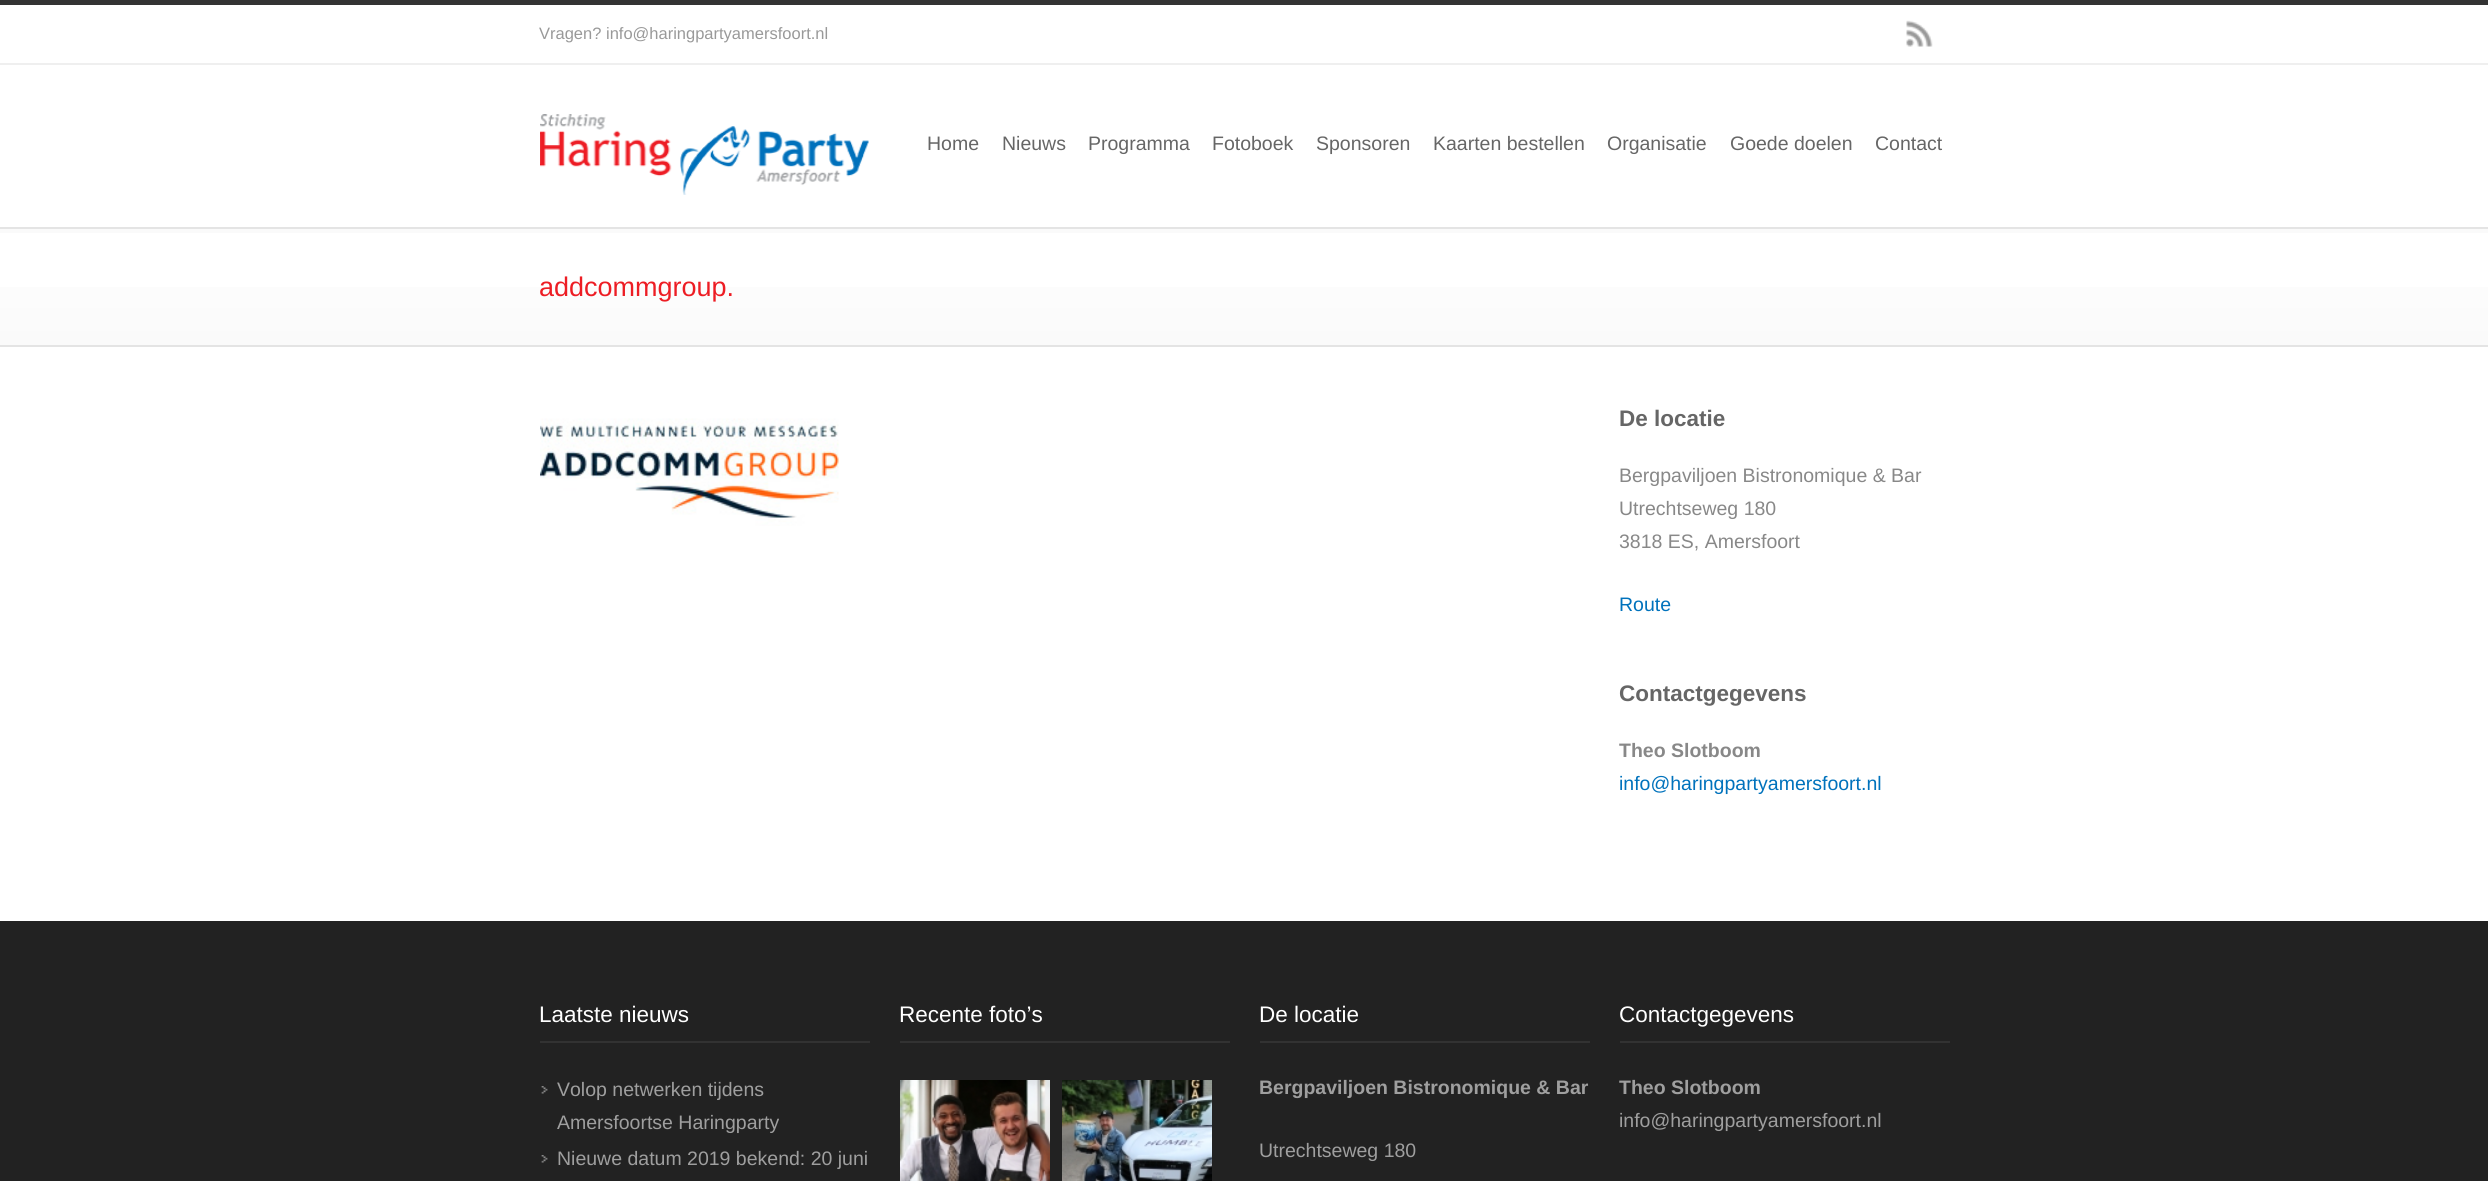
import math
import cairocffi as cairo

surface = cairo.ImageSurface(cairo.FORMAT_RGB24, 2488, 1181)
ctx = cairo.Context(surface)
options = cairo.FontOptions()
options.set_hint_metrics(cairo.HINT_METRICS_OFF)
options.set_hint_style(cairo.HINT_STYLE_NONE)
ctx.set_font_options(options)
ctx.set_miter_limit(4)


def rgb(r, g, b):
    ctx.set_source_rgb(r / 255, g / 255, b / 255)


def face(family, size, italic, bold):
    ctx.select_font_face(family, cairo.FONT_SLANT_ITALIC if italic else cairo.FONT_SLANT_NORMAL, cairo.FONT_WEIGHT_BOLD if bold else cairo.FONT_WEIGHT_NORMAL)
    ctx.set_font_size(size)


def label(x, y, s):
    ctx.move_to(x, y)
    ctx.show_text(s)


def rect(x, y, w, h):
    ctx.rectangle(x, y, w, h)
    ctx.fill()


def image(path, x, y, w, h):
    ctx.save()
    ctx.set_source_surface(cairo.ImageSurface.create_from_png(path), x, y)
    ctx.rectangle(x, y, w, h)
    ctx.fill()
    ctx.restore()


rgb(255, 255, 255)
ctx.paint()
rgb(51, 51, 51)
rect(0, 0, 2488, 5)
rgb(239, 239, 239)
rect(0, 63, 2488, 2)
face('Liberation Sans', 16.5, 0, 0)
rgb(153, 153, 153)
label(539, 39, 'Vragen? info@haringpartyamersfoort.nl')
image('image0.png', 1906, 20, 27, 27)
image('image1.png', 540, 114, 329, 81)
face('Liberation Sans', 19.5, 0, 0)
rgb(102, 102, 102)
label(927, 150, 'Home')
label(1002, 150, 'Nieuws')
label(1088, 150, 'Programma')
label(1212, 150, 'Fotoboek')
label(1316, 150, 'Sponsoren')
label(1433, 150, 'Kaarten bestellen')
label(1607, 150, 'Organisatie')
label(1730, 150, 'Goede doelen')
label(1875, 150, 'Contact')
gradient = cairo.LinearGradient(1244, 345, 1244, 228)
gradient.add_color_stop_rgba(0, 0.98, 0.98, 0.98, 1)
gradient.add_color_stop_rgba(1, 1, 1, 1, 1)
ctx.set_source(gradient)
rect(0, 287, 2488, 58)
rgb(250, 250, 250)
rect(0, 229, 2488, 4)
rgb(228, 228, 228)
rect(0, 227, 2488, 2)
rect(0, 345, 2488, 2)
face('Liberation Sans', 27, 0, 0)
rgb(237, 29, 36)
label(539, 296, 'addcommgroup.')
image('image2.png', 540, 418, 299, 108)
face('Liberation Sans', 22.5, 0, 1)
rgb(102, 102, 102)
label(1619, 426, 'De locatie')
face('Liberation Sans', 19.5, 0, 0)
rgb(136, 136, 136)
label(1619, 482, 'Bergpaviljoen Bistronomique & Bar')
label(1619, 515, 'Utrechtseweg 180')
label(1619, 548, '3818 ES, Amersfoort')
rgb(0, 114, 188)
label(1619, 611, 'Route')
face('Liberation Sans', 22.5, 0, 1)
rgb(102, 102, 102)
label(1619, 701, 'Contactgegevens')
face('Liberation Sans', 19.5, 0, 1)
rgb(136, 136, 136)
label(1619, 757, 'Theo Slotboom')
face('Liberation Sans', 19.5, 0, 0)
rgb(0, 114, 188)
label(1619, 790, 'info@haringpartyamersfoort.nl')
rgb(34, 34, 34)
rect(0, 921, 2488, 260)
rgb(50, 50, 50)
rect(540, 1041, 330, 2)
face('Liberation Sans', 22.5, 0, 0)
rgb(255, 255, 255)
label(539, 1022, 'Laatste nieuws')
image('image3.png', 541, 1086, 7, 8)
face('Liberation Sans', 19.5, 0, 0)
rgb(159, 159, 159)
label(557, 1096, 'Volop netwerken tijdens')
label(557, 1129, 'Amersfoortse Haringparty')
image('image3.png', 541, 1155, 7, 8)
label(557, 1165, 'Nieuwe datum 2019 bekend: 20 juni')
rgb(50, 50, 50)
rect(900, 1041, 330, 2)
face('Liberation Sans', 22.5, 0, 0)
rgb(255, 255, 255)
label(899, 1022, 'Recente foto’s')
image('image4.png', 900, 1080, 150, 101)
image('image5.png', 1062, 1080, 150, 101)
rgb(50, 50, 50)
rect(1260, 1041, 330, 2)
rgb(255, 255, 255)
label(1259, 1022, 'De locatie')
face('Liberation Sans', 19.5, 0, 1)
rgb(159, 159, 159)
label(1259, 1094, 'Bergpaviljoen Bistronomique & Bar')
face('Liberation Sans', 19.5, 0, 0)
label(1259, 1157, 'Utrechtseweg 180')
rgb(50, 50, 50)
rect(1620, 1041, 330, 2)
face('Liberation Sans', 22.5, 0, 0)
rgb(255, 255, 255)
label(1619, 1022, 'Contactgegevens')
face('Liberation Sans', 19.5, 0, 1)
rgb(159, 159, 159)
label(1619, 1094, 'Theo Slotboom')
face('Liberation Sans', 19.5, 0, 0)
label(1619, 1127, 'info@haringpartyamersfoort.nl')
surface.write_to_png('render.png')
